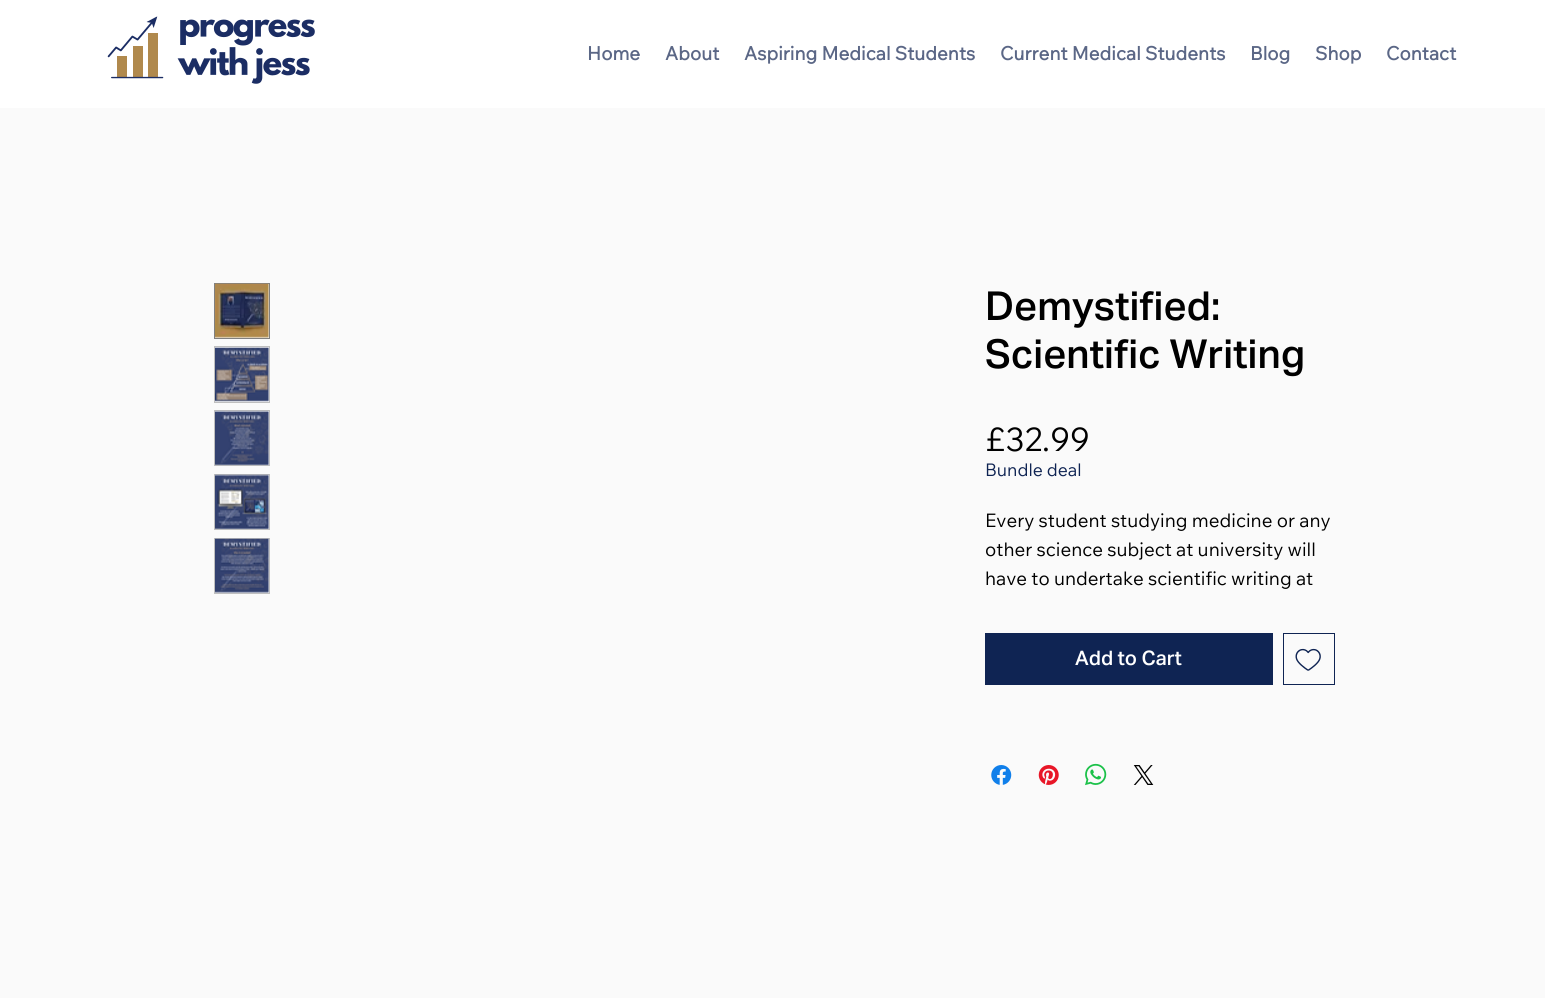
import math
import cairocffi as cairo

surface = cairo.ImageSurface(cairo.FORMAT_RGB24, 1545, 998)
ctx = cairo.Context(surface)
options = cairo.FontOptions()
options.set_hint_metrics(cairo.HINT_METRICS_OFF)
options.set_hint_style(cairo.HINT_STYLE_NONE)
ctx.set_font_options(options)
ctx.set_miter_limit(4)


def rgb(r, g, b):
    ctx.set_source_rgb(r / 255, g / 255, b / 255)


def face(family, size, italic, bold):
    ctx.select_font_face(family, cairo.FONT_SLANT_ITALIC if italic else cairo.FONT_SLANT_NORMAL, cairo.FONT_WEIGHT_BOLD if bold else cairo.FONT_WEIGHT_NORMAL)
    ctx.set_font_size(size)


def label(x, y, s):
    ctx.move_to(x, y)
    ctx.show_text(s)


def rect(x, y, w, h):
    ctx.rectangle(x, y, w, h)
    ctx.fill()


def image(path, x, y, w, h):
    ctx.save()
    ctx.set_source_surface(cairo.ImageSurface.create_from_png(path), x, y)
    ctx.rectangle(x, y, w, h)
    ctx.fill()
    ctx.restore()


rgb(250, 250, 250)
ctx.paint()
rgb(255, 255, 255)
rect(0, 0, 1545, 108)
image('image0.png', 107, 16, 208, 68)
face('Wix Madefor Text', 18.75, 0, 1)
rgb(91, 103, 134)
label(587, 60, 'Home')
label(665, 60, 'About')
label(744, 60, 'Aspiring Medical Students')
label(1000, 60, 'Current Medical Students')
label(1250, 60, 'Blog')
label(1315, 60, 'Shop')
label(1386, 60, 'Contact')
ctx.rectangle(214.5, 283.5, 55, 55)
rgb(128, 128, 128)
ctx.set_line_width(1)
ctx.stroke()
image('image1.png', 215, 283, 54, 55)
ctx.rectangle(214.5, 346.5, 55, 56)
rgb(191, 191, 191)
ctx.stroke()
image('image2.png', 215, 347, 54, 55)
ctx.rectangle(214.5, 410.5, 55, 55)
ctx.stroke()
image('image3.png', 215, 410, 54, 56)
ctx.rectangle(214.5, 474.5, 55, 55)
ctx.stroke()
image('image4.png', 215, 474, 54, 55)
ctx.rectangle(214.5, 538.5, 55, 55)
ctx.stroke()
image('image5.png', 215, 538, 54, 55)
face('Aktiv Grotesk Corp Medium', 40, 0, 0)
rgb(0, 0, 0)
label(985, 320, 'Demystified:')
label(985, 368, 'Scientific Writing')
face('Wix Madefor Text', 32.5, 0, 0)
label(985, 451, '£32.99')
face('Wix Madefor Text', 17.5, 0, 0)
rgb(15, 36, 83)
label(985, 476, 'Bundle deal')
face('Wix Madefor Text', 18.75, 0, 0)
rgb(0, 0, 0)
label(985, 527, 'Every student studying medicine or any')
label(985, 556, 'other science subject at university will')
label(985, 585, 'have to undertake scientific writing at')
rgb(15, 36, 83)
rect(985, 633, 288, 52)
face('Aktiv Grotesk Corp Medium', 20, 0, 0)
rgb(255, 255, 255)
label(1075, 665, 'Add to Cart')
ctx.rectangle(1283.5, 633.5, 51, 51)
rgb(15, 36, 83)
ctx.stroke()
image('image6.png', 1295, 648, 26, 23)
image('image7.png', 991, 765, 21, 20)
image('image8.png', 1038, 765, 21, 20)
image('image9.png', 1085, 763, 22, 23)
image('image10.png', 1133, 765, 21, 20)
surface.write_to_png('render.png')
